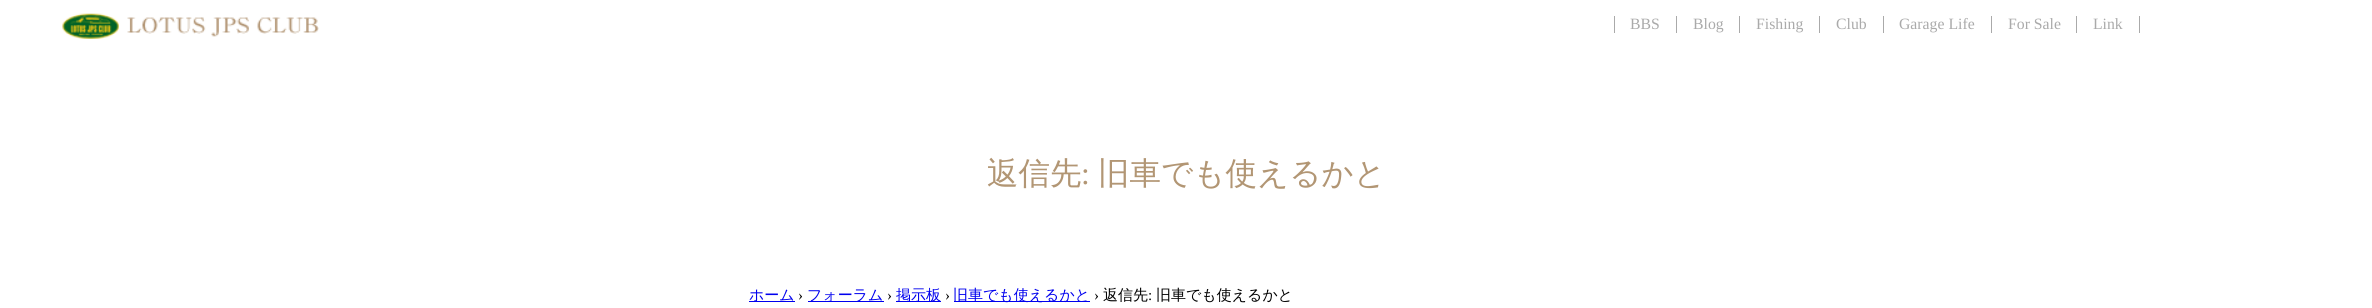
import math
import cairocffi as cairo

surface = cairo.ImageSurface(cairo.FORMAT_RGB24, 2372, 308)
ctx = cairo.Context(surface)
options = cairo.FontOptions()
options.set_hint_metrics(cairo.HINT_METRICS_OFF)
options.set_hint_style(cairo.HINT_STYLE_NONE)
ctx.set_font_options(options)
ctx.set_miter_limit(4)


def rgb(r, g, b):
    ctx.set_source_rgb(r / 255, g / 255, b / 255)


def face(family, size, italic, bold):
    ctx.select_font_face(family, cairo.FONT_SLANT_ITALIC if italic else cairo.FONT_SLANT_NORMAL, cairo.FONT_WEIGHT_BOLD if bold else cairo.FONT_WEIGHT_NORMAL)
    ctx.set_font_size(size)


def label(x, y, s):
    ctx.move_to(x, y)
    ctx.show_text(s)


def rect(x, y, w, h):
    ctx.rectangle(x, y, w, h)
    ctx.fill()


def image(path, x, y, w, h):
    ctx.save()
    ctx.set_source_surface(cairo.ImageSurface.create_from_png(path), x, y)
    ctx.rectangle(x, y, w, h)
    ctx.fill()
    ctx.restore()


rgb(255, 255, 255)
ctx.paint()
image('image0.png', 62, 13, 257, 26)
rgb(170, 170, 170)
rect(1614, 16, 1, 17)
face('Liberation Serif', 15.75, 0, 0)
label(1630, 29, 'BBS')
rect(1676, 16, 1, 17)
label(1693, 29, 'Blog')
rect(1739, 16, 1, 17)
label(1756, 29, 'Fishing')
rect(1819, 16, 1, 17)
label(1836, 29, 'Club')
rect(1883, 16, 1, 17)
label(1899, 29, 'Garage Life')
rect(1991, 16, 1, 17)
label(2008, 29, 'For Sale')
rect(2139, 16, 1, 17)
rect(2076, 16, 1, 17)
label(2093, 29, 'Link')
face('WenQuanYi Zen Hei Medium', 31.5, 0, 0)
rgb(178, 150, 116)
label(987, 184, '返信先')
face('Liberation Serif', 31.5, 0, 0)
label(1081, 184, ':')
face('WenQuanYi Zen Hei Medium', 31.5, 0, 0)
label(1098, 184, '旧車でも使えるかと')
rgb(0, 0, 238)
rect(749, 301, 46, 1)
face('WenQuanYi Zen Hei Medium', 15, 0, 0)
label(749, 300, 'ホーム')
face('Liberation Serif', 15, 0, 0)
rgb(0, 0, 0)
label(798, 300, '›')
rgb(0, 0, 238)
rect(808, 301, 76, 1)
face('WenQuanYi Zen Hei Medium', 15, 0, 0)
label(807, 300, 'フォーラム')
face('Liberation Serif', 15, 0, 0)
rgb(0, 0, 0)
label(887, 300, '›')
rgb(0, 0, 238)
rect(896, 301, 45, 1)
face('WenQuanYi Zen Hei Medium', 15, 0, 0)
label(896, 300, '掲示板')
face('Liberation Serif', 15, 0, 0)
rgb(0, 0, 0)
label(945, 300, '›')
rgb(0, 0, 238)
rect(954, 301, 136, 1)
face('WenQuanYi Zen Hei Medium', 15, 0, 0)
label(953, 300, '旧車でも使えるかと')
face('Liberation Serif', 15, 0, 0)
rgb(0, 0, 0)
label(1094, 300, '›')
face('WenQuanYi Zen Hei Medium', 15, 0, 0)
label(1103, 300, '返信先')
face('Liberation Serif', 15, 0, 0)
label(1148, 300, ':')
face('WenQuanYi Zen Hei Medium', 15, 0, 0)
label(1156, 300, '旧車でも使えるかと')
surface.write_to_png('render.png')
